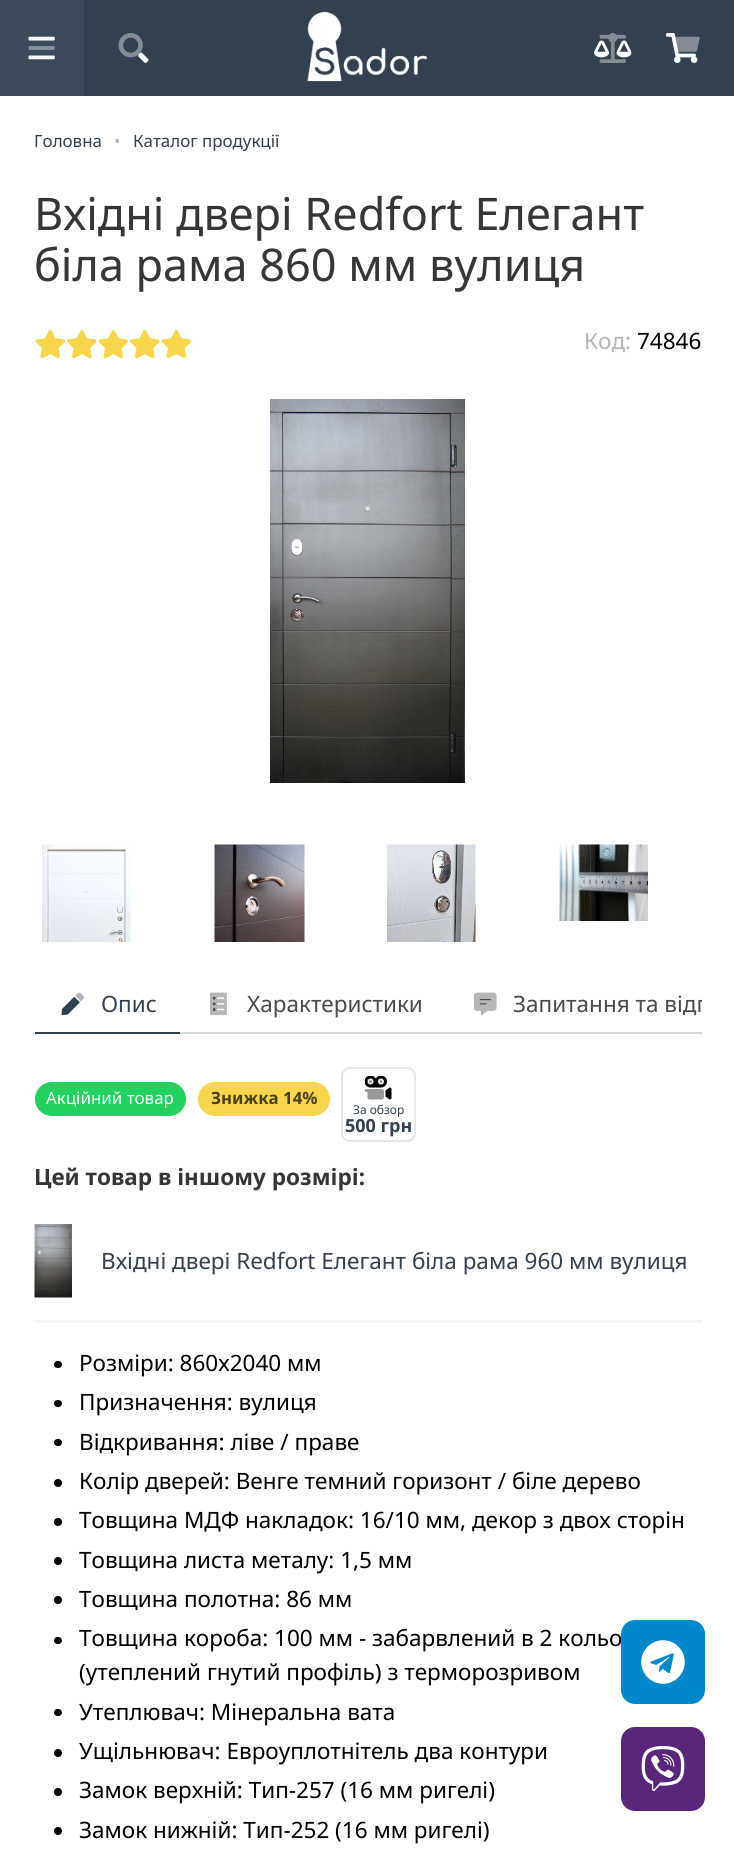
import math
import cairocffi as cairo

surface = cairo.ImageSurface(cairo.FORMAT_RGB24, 734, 1850)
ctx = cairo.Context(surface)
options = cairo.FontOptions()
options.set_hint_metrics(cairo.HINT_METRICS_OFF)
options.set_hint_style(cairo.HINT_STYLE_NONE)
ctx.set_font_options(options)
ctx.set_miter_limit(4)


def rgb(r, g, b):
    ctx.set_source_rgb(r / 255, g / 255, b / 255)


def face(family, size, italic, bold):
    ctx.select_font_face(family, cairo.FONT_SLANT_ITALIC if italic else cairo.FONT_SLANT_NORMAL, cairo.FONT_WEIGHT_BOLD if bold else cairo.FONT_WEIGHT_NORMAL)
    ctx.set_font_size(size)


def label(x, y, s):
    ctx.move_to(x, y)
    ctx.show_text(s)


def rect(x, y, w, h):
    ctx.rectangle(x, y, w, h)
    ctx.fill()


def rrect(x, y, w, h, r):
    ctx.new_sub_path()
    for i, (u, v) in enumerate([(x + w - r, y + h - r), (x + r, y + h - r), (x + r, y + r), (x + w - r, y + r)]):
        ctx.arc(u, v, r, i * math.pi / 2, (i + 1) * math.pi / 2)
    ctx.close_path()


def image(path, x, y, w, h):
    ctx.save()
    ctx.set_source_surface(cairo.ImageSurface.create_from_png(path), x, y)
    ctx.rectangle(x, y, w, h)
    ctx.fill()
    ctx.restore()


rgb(255, 255, 255)
ctx.paint()
rgb(51, 64, 78)
rect(84, 0, 650, 96)
rgb(60, 75, 92)
rect(0, 0, 84, 96)
image('image0.png', 28, 36, 27, 24)
image('image1.png', 118, 33, 31, 30)
image('image2.png', 307, 11, 121, 71)
image('image3.png', 594, 33, 38, 30)
image('image4.png', 666, 33, 34, 30)
face('Noto Sans', 16.9, 0, 0)
rgb(51, 64, 78)
label(34, 147, 'Головна')
rgb(181, 181, 181)
label(114, 147, '•')
rgb(51, 64, 78)
label(133, 147, 'Каталог продукції')
face('Noto Sans', 45, 0, 0)
rgb(54, 54, 54)
label(34, 230, 'Вхідні двері Redfort Елегант')
label(34, 281, 'біла рама 860 мм вулиця')
image('image5.png', 35, 330, 30, 29)
image('image6.png', 67, 330, 30, 29)
image('image5.png', 98, 330, 30, 29)
image('image6.png', 130, 330, 30, 29)
image('image5.png', 161, 330, 30, 29)
face('Noto Sans', 22.5, 0, 0)
rgb(181, 181, 181)
label(584, 349, 'Код:')
rgb(0, 0, 0)
label(637, 349, '74846')
image('image7.png', 270, 399, 195, 384)
image('image8.png', 42, 844, 89, 98)
image('image9.png', 214, 844, 91, 98)
image('image10.png', 387, 844, 89, 98)
image('image11.png', 559, 844, 89, 77)
rgb(219, 219, 219)
rect(180, 1032, 522, 2)
rgb(51, 64, 78)
rect(35, 1032, 145, 2)
image('image12.png', 61, 992, 23, 24)
label(101, 1012, 'Опис')
image('image13.png', 210, 992, 17, 24)
rgb(74, 74, 74)
label(247, 1012, 'Характеристики')
image('image14.png', 474, 992, 23, 23)
ctx.save()
ctx.rectangle(35, 975, 667, 59)
ctx.clip()
label(513, 1012, 'Запитання та відг')
ctx.restore()
rgb(35, 209, 96)
rrect(35, 1082, 151, 34, 17)
ctx.fill()
face('Noto Sans', 16.9, 0, 0)
rgb(255, 255, 255)
label(46, 1104, 'Акційний товар')
rgb(247, 214, 75)
rrect(198, 1082, 132, 34, 17)
ctx.fill()
face('Noto Sans', 16.9, 0, 1)
rgb(74, 64, 23)
label(211, 1104, 'Знижка 14%')
rrect(342, 1068, 73, 73, 8)
rgb(229, 231, 235)
ctx.stroke()
image('image15.png', 365, 1076, 27, 24)
face('Noto Sans', 12, 0, 0)
rgb(51, 64, 78)
label(353, 1114, 'За обзор')
face('Noto Sans', 18, 0, 1)
label(345, 1132, '500 грн')
face('Noto Sans', 22.5, 0, 1)
rgb(54, 54, 54)
label(34, 1185, 'Цей товар в іншому розмірі:')
image('image16.png', 34, 1224, 38, 74)
face('Noto Sans', 22.5, 0, 0)
rgb(51, 64, 78)
label(101, 1269, 'Вхідні двері Redfort Елегант біла рама 960 мм вулиця')
rgb(245, 245, 245)
rect(35, 1320, 667, 3)
rgb(0, 0, 0)
rrect(54, 1361, 8, 7, 3.5)
ctx.fill()
label(79, 1371, 'Розміри: 860х2040 мм')
rrect(54, 1400, 8, 7, 3.5)
ctx.fill()
label(79, 1410, 'Призначення: вулиця')
rrect(54, 1439, 8, 7, 3.5)
ctx.fill()
label(79, 1450, 'Відкривання: ліве / праве')
ctx.new_path()
ctx.arc(58, 1483, 4, 0, 2 * math.pi)
ctx.fill()
label(79, 1489, 'Колір дверей: Венге темний горизонт / біле дерево')
ctx.new_path()
ctx.arc(58, 1522, 4, 0, 2 * math.pi)
ctx.fill()
label(79, 1528, 'Товщина МДФ накладок: 16/10 мм, декор з двох сторін')
ctx.new_path()
ctx.arc(58, 1561, 4, 0, 2 * math.pi)
ctx.fill()
label(79, 1568, 'Товщина листа металу: 1,5 мм')
ctx.new_path()
ctx.arc(58, 1600, 4, 0, 2 * math.pi)
ctx.fill()
label(79, 1607, 'Товщина полотна: 86 мм')
rrect(54, 1637, 8, 7, 3.5)
ctx.fill()
label(79, 1646, 'Товщина короба: 100 мм - забарвлений в 2 кольо')
label(79, 1680, '(утеплений гнутий профіль) з терморозривом')
rrect(54, 1709, 8, 7, 3.5)
ctx.fill()
label(79, 1720, 'Утеплювач: Мінеральна вата')
ctx.new_path()
ctx.arc(58, 1753, 4, 0, 2 * math.pi)
ctx.fill()
label(79, 1759, 'Ущільнювач: Евроуплотнітель два контури')
ctx.new_path()
ctx.arc(58, 1792, 4, 0, 2 * math.pi)
ctx.fill()
label(79, 1798, 'Замок верхній: Тип-257 (16 мм ригелі)')
ctx.new_path()
ctx.arc(58, 1831, 4, 0, 2 * math.pi)
ctx.fill()
label(79, 1838, 'Замок нижній: Тип-252 (16 мм ригелі)')
rgb(0, 136, 204)
rrect(621, 1620, 84, 84, 14)
ctx.fill()
image('image17.png', 641, 1640, 44, 44)
rgb(89, 38, 124)
rrect(621, 1727, 84, 84, 14)
ctx.fill()
image('image18.png', 641, 1746, 44, 45)
surface.write_to_png('render.png')
